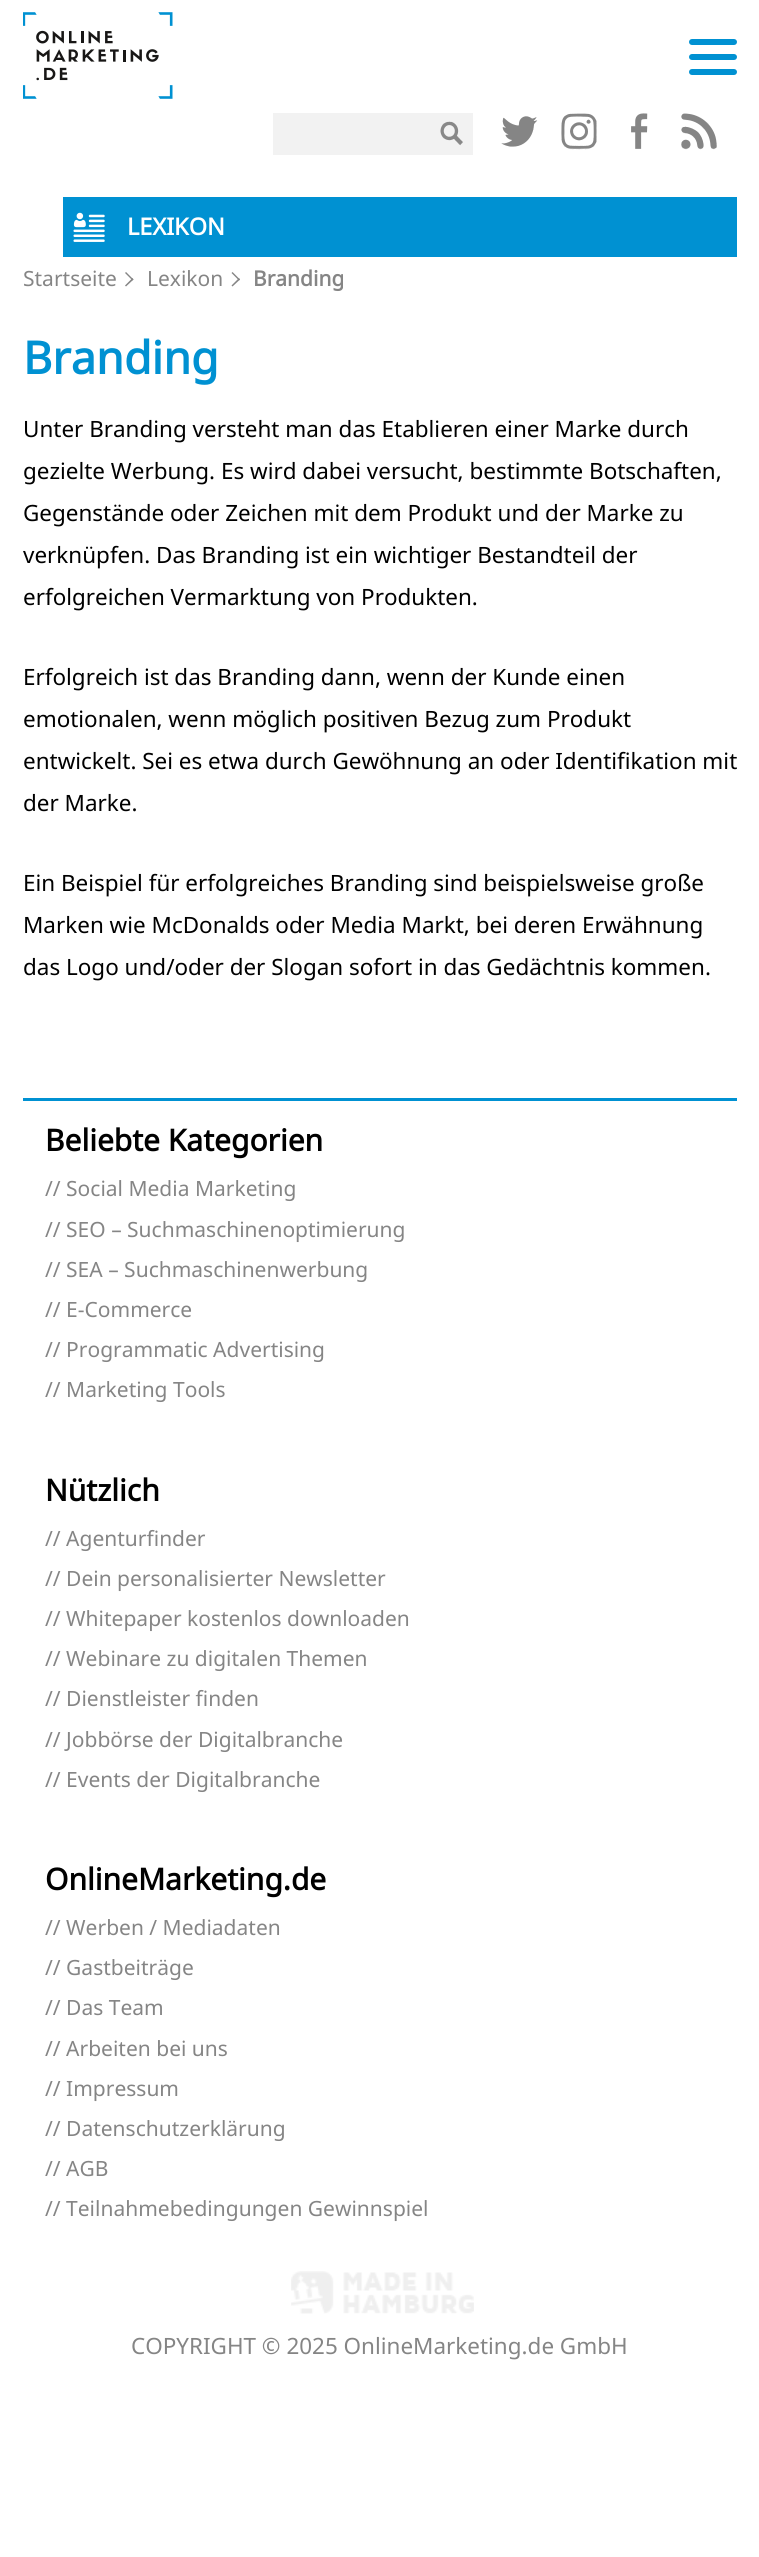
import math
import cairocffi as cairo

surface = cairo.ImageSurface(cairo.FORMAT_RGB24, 759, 2557)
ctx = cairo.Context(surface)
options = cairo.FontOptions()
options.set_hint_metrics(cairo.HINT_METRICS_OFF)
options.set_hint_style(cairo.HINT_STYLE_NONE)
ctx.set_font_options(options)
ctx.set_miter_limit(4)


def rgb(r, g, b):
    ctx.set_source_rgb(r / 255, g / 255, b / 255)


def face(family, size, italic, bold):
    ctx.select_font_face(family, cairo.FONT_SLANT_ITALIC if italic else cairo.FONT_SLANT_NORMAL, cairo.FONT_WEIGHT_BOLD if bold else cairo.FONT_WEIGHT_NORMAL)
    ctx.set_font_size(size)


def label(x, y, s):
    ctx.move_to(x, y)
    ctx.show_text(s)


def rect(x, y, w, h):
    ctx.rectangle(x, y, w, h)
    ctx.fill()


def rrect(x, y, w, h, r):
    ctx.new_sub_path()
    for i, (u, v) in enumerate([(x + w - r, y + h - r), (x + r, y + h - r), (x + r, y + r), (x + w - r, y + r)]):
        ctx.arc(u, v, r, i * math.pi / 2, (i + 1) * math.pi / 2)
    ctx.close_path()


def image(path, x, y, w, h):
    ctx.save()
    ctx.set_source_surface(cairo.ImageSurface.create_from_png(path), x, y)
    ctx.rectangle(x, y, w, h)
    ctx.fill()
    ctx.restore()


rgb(255, 255, 255)
ctx.paint()
image('image0.png', 23, 12, 150, 87)
rgb(0, 145, 210)
rrect(689, 39, 48, 6, 3)
ctx.fill()
rrect(689, 54, 48, 6, 3)
ctx.fill()
rrect(689, 69, 48, 6, 3)
ctx.fill()
rgb(242, 242, 242)
rect(273, 113, 200, 42)
image('image3.png', 442, 123, 19, 23)
image('image4.png', 448, 136, 15, 6)
image('image1.png', 440, 121, 23, 23)
image('image2.png', 440, 121, 23, 24)
rgb(251, 251, 251)
rect(527, 140, 1, 1)
image('image5.png', 501, 116, 33, 31)
image('image6.png', 501, 116, 37, 31)
image('image9.png', 564, 116, 33, 34)
image('image10.png', 564, 116, 33, 34)
image('image8.png', 561, 116, 36, 34)
image('image7.png', 561, 113, 36, 36)
image('image11.png', 631, 113, 13, 18)
image('image12.png', 631, 113, 17, 36)
image('image16.png', 681, 120, 36, 29)
image('image13.png', 681, 113, 36, 37)
image('image14.png', 681, 113, 36, 37)
image('image15.png', 681, 113, 36, 36)
rgb(0, 145, 210)
rect(63, 197, 674, 60)
image('image17.png', 73, 212, 32, 30)
face('Noto Sans', 23.5, 0, 1)
rgb(255, 255, 255)
label(127, 235, 'LEXIKON')
face('Noto Sans', 21, 0, 0)
rgb(133, 133, 133)
label(23, 286, 'Startseite')
ctx.new_path()
ctx.move_to(126, 272)
ctx.line_to(133.5, 279.5)
ctx.line_to(132.5, 280.5)
ctx.line_to(125, 273)
ctx.close_path()
ctx.fill()
ctx.new_path()
ctx.move_to(132.5, 278)
ctx.line_to(133.5, 279.5)
ctx.line_to(126, 286.5)
ctx.line_to(125, 285.5)
ctx.close_path()
ctx.fill()
label(147, 286, 'Lexikon')
ctx.new_path()
ctx.move_to(232.5, 272)
ctx.line_to(240, 279.5)
ctx.line_to(239, 280.5)
ctx.line_to(231.5, 273)
ctx.close_path()
ctx.fill()
ctx.new_path()
ctx.move_to(239, 278)
ctx.line_to(240, 279.5)
ctx.line_to(232.5, 286.5)
ctx.line_to(231.5, 285.5)
ctx.close_path()
ctx.fill()
face('Noto Sans', 21, 0, 1)
label(253, 286, 'Branding')
face('Noto Sans', 45, 0, 1)
rgb(0, 145, 210)
label(23, 374, 'Branding')
face('Noto Sans', 22.45, 0, 0)
rgb(0, 0, 0)
label(23, 437, 'Unter Branding versteht man das Etablieren einer Marke durch')
label(23, 479, 'gezielte Werbung. Es wird dabei versucht, bestimmte Botschaften,')
label(23, 521, 'Gegenstände oder Zeichen mit dem Produkt und der Marke zu')
label(23, 563, 'verknüpfen. Das Branding ist ein wichtiger Bestandteil der')
label(23, 605, 'erfolgreichen Vermarktung von Produkten.')
label(23, 685, 'Erfolgreich ist das Branding dann, wenn der Kunde einen')
label(23, 727, 'emotionalen, wenn möglich positiven Bezug zum Produkt')
label(23, 769, 'entwickelt. Sei es etwa durch Gewöhnung an oder Identifikation mit')
label(23, 811, 'der Marke.')
label(23, 891, 'Ein Beispiel für erfolgreiches Branding sind beispielsweise große')
label(23, 933, 'Marken wie McDonalds oder Media Markt, bei deren Erwähnung')
label(23, 975, 'das Logo und/oder der Slogan sofort in das Gedächtnis kommen.')
rgb(0, 145, 210)
rect(23, 1098, 714, 3)
face('Noto Sans', 30, 0, 1)
rgb(0, 0, 0)
label(45, 1151, 'Beliebte Kategorien')
face('Noto Sans', 21, 0, 0)
rgb(133, 133, 133)
label(45, 1196, '// Social Media Marketing')
label(45, 1237, '// SEO – Suchmaschinenoptimierung')
label(45, 1277, '// SEA – Suchmaschinenwerbung')
label(45, 1317, '// E-Commerce')
label(45, 1357, '// Programmatic Advertising')
label(45, 1397, '// Marketing Tools')
face('Noto Sans', 30, 0, 1)
rgb(0, 0, 0)
label(45, 1501, 'Nützlich')
face('Noto Sans', 21, 0, 0)
rgb(133, 133, 133)
label(45, 1546, '// Agenturfinder')
label(45, 1586, '// Dein personalisierter Newsletter')
label(45, 1626, '// Whitepaper kostenlos downloaden')
label(45, 1666, '// Webinare zu digitalen Themen')
label(45, 1706, '// Dienstleister finden')
label(45, 1747, '// Jobbörse der Digitalbranche')
label(45, 1787, '// Events der Digitalbranche')
face('Noto Sans', 30, 0, 1)
rgb(0, 0, 0)
label(45, 1890, 'OnlineMarketing.de')
face('Noto Sans', 21, 0, 0)
rgb(133, 133, 133)
label(45, 1935, '// Werben / Mediadaten')
label(45, 1975, '// Gastbeiträge')
label(45, 2015, '// Das Team')
label(45, 2056, '// Arbeiten bei uns')
label(45, 2096, '// Impressum')
label(45, 2136, '// Datenschutzerklärung')
label(45, 2176, '// AGB')
label(45, 2216, '// Teilnahmebedingungen Gewinnspiel')
image('image18.png', 291, 2271, 183, 43)
face('Noto Sans', 22.45, 0, 0)
label(131, 2354, 'COPYRIGHT © 2025 OnlineMarketing.de GmbH')
surface.write_to_png('render.png')
